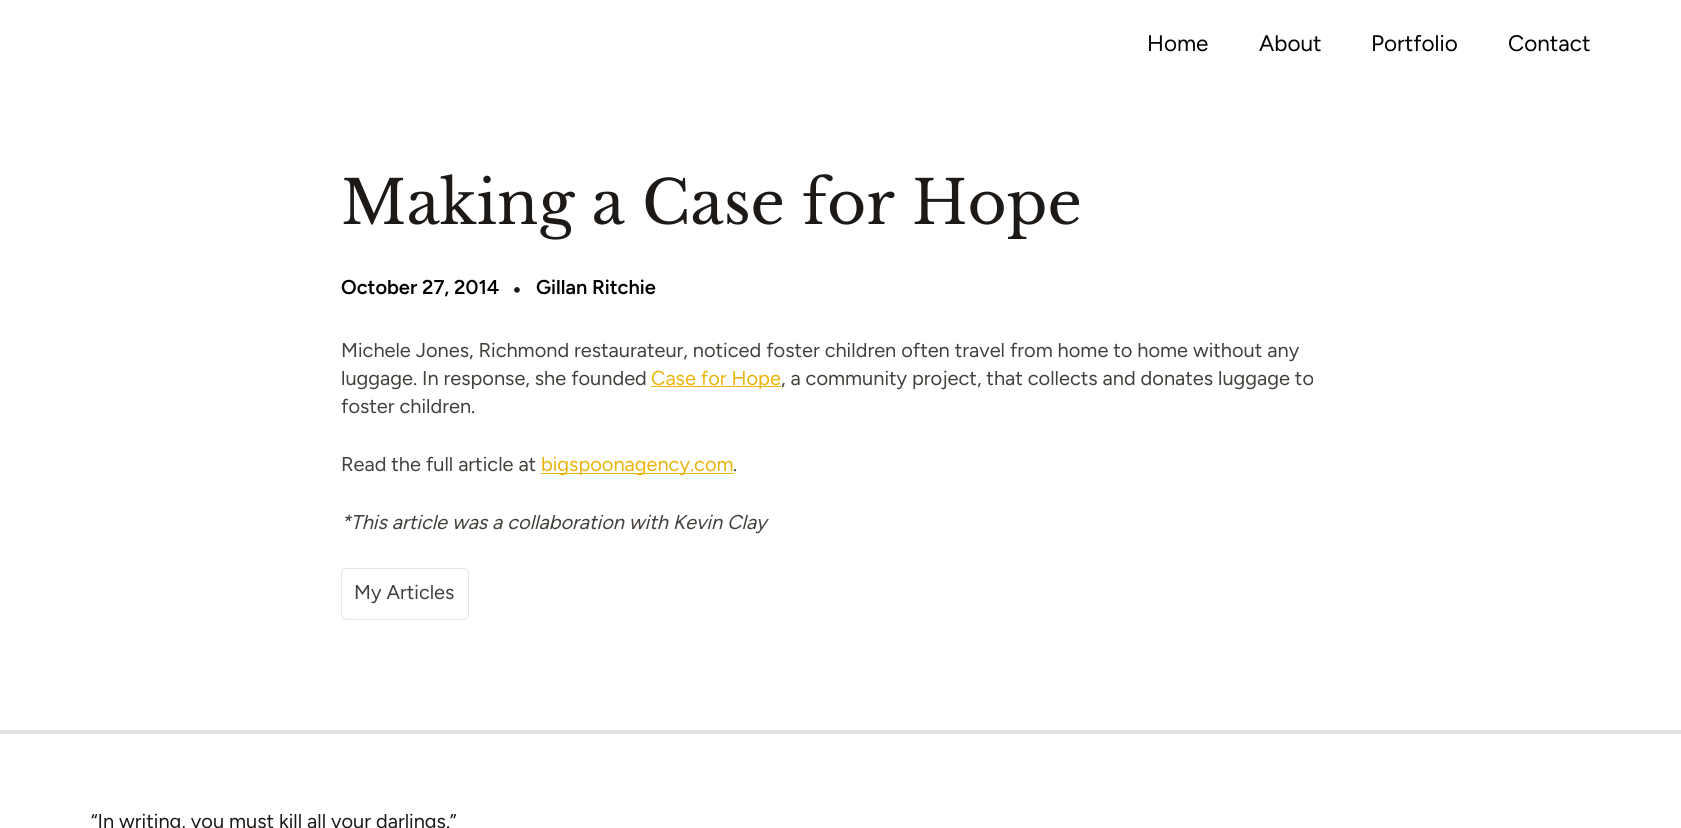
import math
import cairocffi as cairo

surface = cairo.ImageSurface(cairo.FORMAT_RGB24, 1681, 828)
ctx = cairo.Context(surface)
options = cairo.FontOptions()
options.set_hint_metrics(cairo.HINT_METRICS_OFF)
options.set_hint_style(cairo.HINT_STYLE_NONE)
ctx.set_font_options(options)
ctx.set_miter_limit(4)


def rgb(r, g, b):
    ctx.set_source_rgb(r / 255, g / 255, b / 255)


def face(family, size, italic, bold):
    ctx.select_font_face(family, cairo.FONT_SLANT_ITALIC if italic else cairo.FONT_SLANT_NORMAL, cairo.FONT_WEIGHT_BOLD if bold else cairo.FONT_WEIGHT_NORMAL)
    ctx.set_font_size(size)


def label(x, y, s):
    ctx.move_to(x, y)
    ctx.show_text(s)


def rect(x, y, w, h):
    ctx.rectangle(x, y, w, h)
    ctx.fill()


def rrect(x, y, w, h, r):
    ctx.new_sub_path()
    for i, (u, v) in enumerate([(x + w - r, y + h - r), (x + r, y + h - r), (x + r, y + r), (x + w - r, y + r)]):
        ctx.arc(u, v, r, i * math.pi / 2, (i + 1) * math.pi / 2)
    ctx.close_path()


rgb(255, 255, 255)
ctx.paint()
face('Figtree', 22.5, 0, 0)
rgb(0, 0, 0)
label(1147, 51, 'Home')
label(1259, 51, 'About')
label(1371, 51, 'Portfolio')
label(1508, 51, 'Contact')
face('Libre Baskerville', 60, 0, 0)
rgb(28, 25, 23)
label(341, 224, 'Making a Case for Hope')
face('Figtree SemiBold', 20, 0, 0)
rgb(0, 0, 0)
label(341, 294, 'October 27, 2014')
face('Figtree SemiBold', 25, 0, 0)
rgb(28, 25, 23)
label(511, 297, '•')
face('Figtree SemiBold', 20, 0, 0)
rgb(0, 0, 0)
label(536, 294, 'Gillan Ritchie')
face('Figtree', 20, 0, 0)
rgb(68, 64, 60)
label(341, 357, 'Michele Jones, Richmond restaurateur, noticed foster children often travel from home to home without any')
label(341, 385, 'luggage. In response, she founded')
rgb(234, 179, 8)
rect(651, 386, 130, 1)
label(651, 385, 'Case for Hope')
rgb(68, 64, 60)
label(781, 385, ', a community project, that collects and donates luggage to')
label(341, 413, 'foster children.')
label(341, 471, 'Read the full article at')
rgb(234, 179, 8)
rect(541, 473, 193, 1)
label(541, 471, 'bigspoonagency.com')
rgb(68, 64, 60)
label(733, 471, '.')
face('Figtree', 20, 1, 0)
label(341, 529, '*This article was a collaboration with Kevin Clay')
rrect(341.5, 568.5, 127, 51, 5.5)
rgb(228, 228, 231)
ctx.set_line_width(1)
ctx.stroke()
face('Figtree', 20, 0, 0)
rgb(68, 64, 60)
label(354, 599, 'My Articles')
rgb(228, 228, 231)
rect(0, 730, 1681, 4)
rgb(28, 25, 23)
label(91, 828, '“In writing, you must kill all your darlings.”')
surface.write_to_png('render.png')
